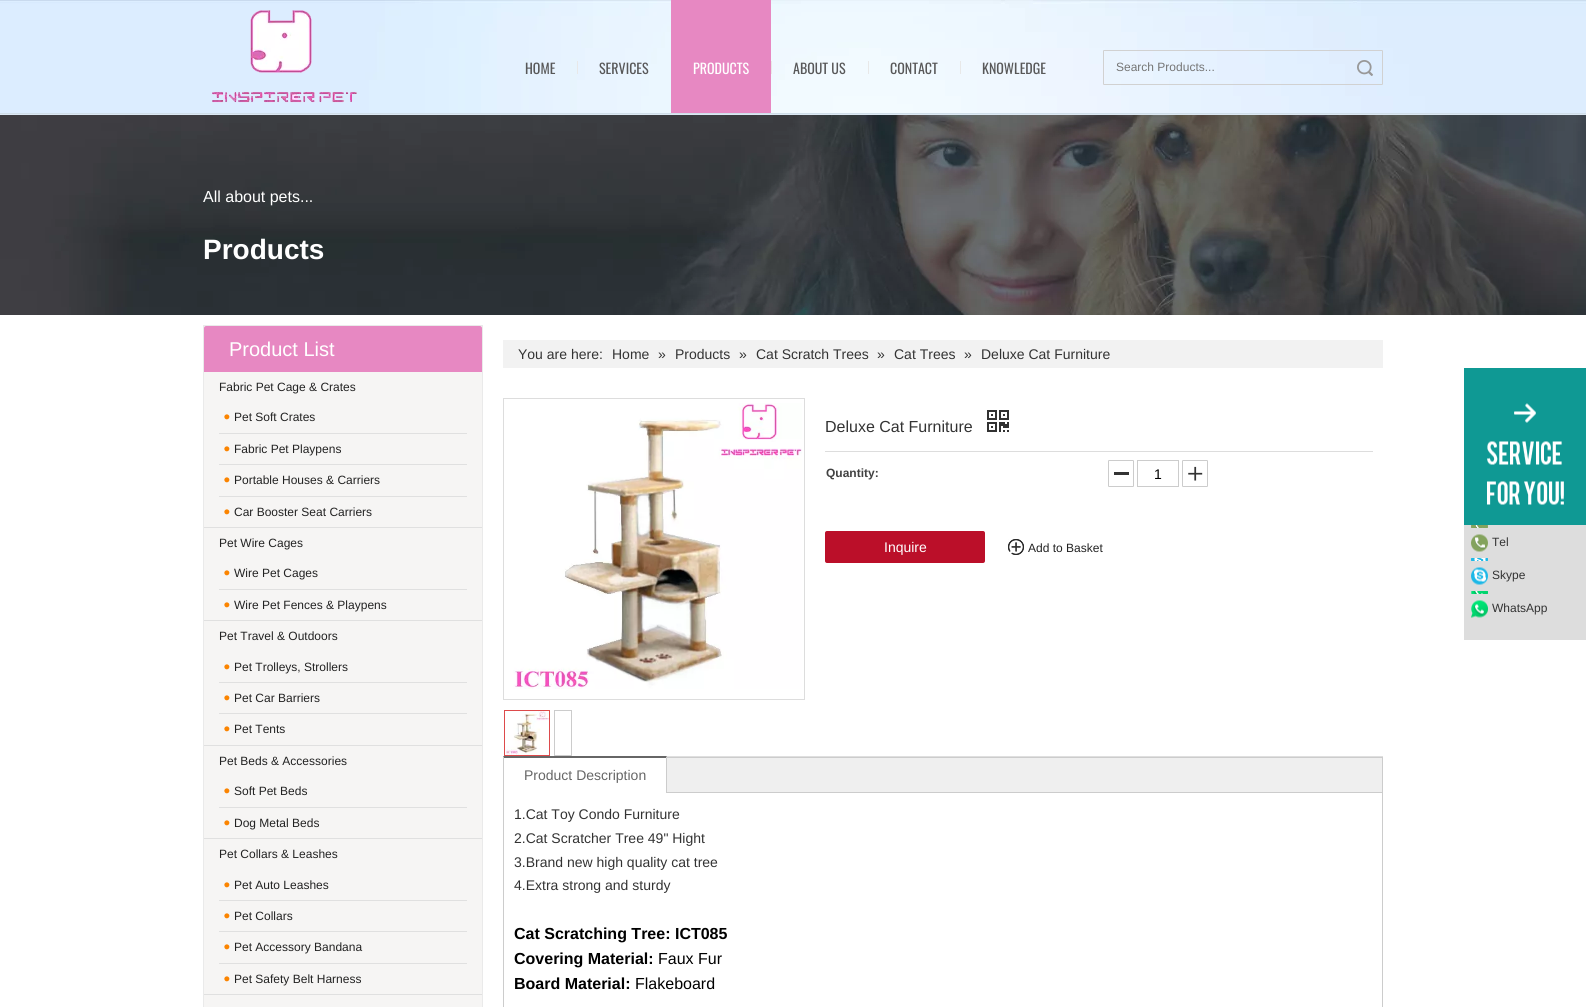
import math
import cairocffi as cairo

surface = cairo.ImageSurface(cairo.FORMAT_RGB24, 1586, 1007)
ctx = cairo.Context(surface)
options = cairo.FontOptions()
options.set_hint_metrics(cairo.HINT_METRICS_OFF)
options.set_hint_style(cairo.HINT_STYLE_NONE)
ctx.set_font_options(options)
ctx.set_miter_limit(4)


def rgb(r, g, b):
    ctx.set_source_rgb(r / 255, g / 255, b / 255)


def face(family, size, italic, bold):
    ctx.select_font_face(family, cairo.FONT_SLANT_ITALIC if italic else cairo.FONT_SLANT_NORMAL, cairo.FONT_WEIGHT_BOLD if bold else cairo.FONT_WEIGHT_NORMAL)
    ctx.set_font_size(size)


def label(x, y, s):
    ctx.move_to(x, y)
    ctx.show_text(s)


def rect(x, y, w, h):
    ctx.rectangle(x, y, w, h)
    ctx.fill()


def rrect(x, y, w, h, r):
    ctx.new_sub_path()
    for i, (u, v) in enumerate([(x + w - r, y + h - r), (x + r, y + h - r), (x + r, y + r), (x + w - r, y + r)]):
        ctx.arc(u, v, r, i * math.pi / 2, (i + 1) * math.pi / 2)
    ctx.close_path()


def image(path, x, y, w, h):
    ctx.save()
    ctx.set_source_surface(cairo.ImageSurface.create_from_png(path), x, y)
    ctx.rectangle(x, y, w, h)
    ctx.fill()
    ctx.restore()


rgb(255, 255, 255)
ctx.paint()
rgb(220, 233, 244)
rect(0, 114, 1586, 1)
image('image0.png', 0, 0, 1586, 113)
rgb(208, 222, 233)
rect(0, 113, 1586, 1)
image('image1.png', 212, 10, 145, 93)
face('Oswald', 14, 0, 0)
rgb(88, 88, 89)
label(525, 74, 'HOME')
rgb(232, 232, 232)
rect(577, 61, 1, 13)
rgb(88, 88, 89)
label(599, 74, 'SERVICES')
rgb(231, 136, 194)
rect(671, 0, 100, 113)
rgb(255, 255, 255)
label(693, 74, 'PRODUCTS')
rgb(232, 232, 232)
rect(771, 61, 1, 13)
rgb(88, 88, 89)
label(793, 74, 'ABOUT US')
rgb(232, 232, 232)
rect(868, 61, 1, 13)
rgb(88, 88, 89)
label(890, 74, 'CONTACT')
rgb(232, 232, 232)
rect(960, 61, 1, 13)
rgb(88, 88, 89)
label(982, 74, 'KNOWLEDGE')
rrect(1103.5, 50.5, 279, 34, 0.5)
rgb(209, 209, 209)
ctx.set_line_width(1)
ctx.stroke()
face('Liberation Sans', 12, 0, 0)
rgb(117, 117, 117)
label(1116, 71, 'Search Products...')
image('image2.png', 1357, 60, 16, 16)
image('image3.png', 0, 115, 1586, 200)
face('Liberation Sans', 16, 0, 0)
rgb(255, 255, 255)
label(203, 202, 'All about pets...')
face('Liberation Sans', 28, 0, 1)
label(203, 259, 'Products')
rgb(246, 245, 244)
rect(204, 326, 278, 681)
rgb(234, 234, 234)
rect(203, 325, 280, 1)
rect(482, 325, 1, 682)
rect(203, 325, 1, 682)
rgb(231, 136, 194)
ctx.new_path()
ctx.move_to(206, 326)
ctx.line_to(480, 326)
ctx.curve_to(481, 326, 482, 327, 482, 328)
ctx.line_to(482, 372)
ctx.line_to(204, 372)
ctx.line_to(204, 328)
ctx.curve_to(204, 327, 205, 326, 206, 326)
ctx.close_path()
ctx.fill()
face('Liberation Sans', 20, 0, 0)
rgb(255, 255, 255)
label(229, 356, 'Product List')
face('Liberation Sans', 12, 0, 0)
rgb(34, 34, 34)
label(219, 391, 'Fabric Pet Cage & Crates')
image('image4.png', 224, 414, 6, 6)
label(234, 421, 'Pet Soft Crates')
image('image4.png', 224, 446, 6, 6)
rgb(224, 224, 224)
rect(219, 433, 248, 1)
rgb(34, 34, 34)
label(234, 453, 'Fabric Pet Playpens')
image('image4.png', 224, 477, 6, 6)
rgb(224, 224, 224)
rect(219, 464, 248, 1)
rgb(34, 34, 34)
label(234, 484, 'Portable Houses & Carriers')
image('image4.png', 224, 509, 6, 6)
rgb(224, 224, 224)
rect(219, 496, 248, 1)
rgb(34, 34, 34)
label(234, 516, 'Car Booster Seat Carriers')
rgb(224, 224, 224)
rect(204, 527, 278, 1)
rgb(34, 34, 34)
label(219, 547, 'Pet Wire Cages')
image('image4.png', 224, 570, 6, 6)
label(234, 577, 'Wire Pet Cages')
image('image4.png', 224, 602, 6, 6)
rgb(224, 224, 224)
rect(219, 589, 248, 1)
rgb(34, 34, 34)
label(234, 609, 'Wire Pet Fences & Playpens')
rgb(224, 224, 224)
rect(204, 620, 278, 1)
rgb(34, 34, 34)
label(219, 640, 'Pet Travel & Outdoors')
image('image4.png', 224, 664, 6, 6)
label(234, 671, 'Pet Trolleys, Strollers')
image('image4.png', 224, 695, 6, 6)
rgb(224, 224, 224)
rect(219, 682, 248, 1)
rgb(34, 34, 34)
label(234, 702, 'Pet Car Barriers')
image('image4.png', 224, 726, 6, 6)
rgb(224, 224, 224)
rect(219, 713, 248, 1)
rgb(34, 34, 34)
label(234, 733, 'Pet Tents')
rgb(224, 224, 224)
rect(204, 745, 278, 1)
rgb(34, 34, 34)
label(219, 765, 'Pet Beds & Accessories')
image('image4.png', 224, 788, 6, 6)
label(234, 795, 'Soft Pet Beds')
image('image4.png', 224, 820, 6, 6)
rgb(224, 224, 224)
rect(219, 807, 248, 1)
rgb(34, 34, 34)
label(234, 827, 'Dog Metal Beds')
rgb(224, 224, 224)
rect(204, 838, 278, 1)
rgb(34, 34, 34)
label(219, 858, 'Pet Collars & Leashes')
image('image4.png', 224, 882, 6, 6)
label(234, 889, 'Pet Auto Leashes')
image('image4.png', 224, 913, 6, 6)
rgb(224, 224, 224)
rect(219, 900, 248, 1)
rgb(34, 34, 34)
label(234, 920, 'Pet Collars')
image('image4.png', 224, 944, 6, 6)
rgb(224, 224, 224)
rect(219, 931, 248, 1)
rgb(34, 34, 34)
label(234, 951, 'Pet Accessory Bandana')
image('image4.png', 224, 976, 6, 6)
rgb(224, 224, 224)
rect(219, 963, 248, 1)
rgb(34, 34, 34)
label(234, 983, 'Pet Safety Belt Harness')
rgb(224, 224, 224)
rect(204, 994, 278, 1)
rgb(242, 242, 242)
rect(503, 340, 880, 28)
face('Liberation Sans', 14, 0, 0)
rgb(51, 51, 51)
label(518, 359, 'You are here:')
label(612, 359, 'Home')
label(658, 359, '»')
label(675, 359, 'Products')
label(739, 359, '»')
label(756, 359, 'Cat Scratch Trees')
label(877, 359, '»')
label(894, 359, 'Cat Trees')
label(964, 359, '»')
label(981, 359, 'Deluxe Cat Furniture')
ctx.rectangle(503.5, 398.5, 301, 301)
rgb(221, 221, 221)
ctx.stroke()
image('image5.png', 513, 403, 289, 286)
rgb(221, 74, 75)
rect(504, 710, 46, 46)
image('image6.png', 505, 711, 44, 44)
ctx.rectangle(554.5, 710.5, 17, 45)
rgb(204, 204, 204)
ctx.stroke()
rgb(221, 221, 221)
rect(825, 451, 548, 1)
face('Liberation Sans', 16, 0, 0)
rgb(51, 51, 51)
label(825, 432, 'Deluxe Cat Furniture')
image('image7.png', 987, 410, 22, 22)
face('Liberation Sans', 12, 0, 1)
rgb(66, 66, 66)
label(826, 477, 'Quantity:')
rgb(51, 51, 51)
rect(1114, 472, 15, 3)
rrect(1108.5, 460.5, 25, 26, 0.5)
rgb(204, 204, 204)
ctx.stroke()
ctx.rectangle(1137.5, 460.5, 41, 26)
ctx.stroke()
face('Liberation Sans', 14, 0, 0)
rgb(0, 0, 0)
label(1154, 479, '1')
image('image8.png', 1188, 466, 15, 15)
rrect(1182.5, 460.5, 25, 26, 0.5)
rgb(204, 204, 204)
ctx.stroke()
rgb(187, 15, 41)
rrect(825, 531, 160, 32, 2)
ctx.fill()
rgb(255, 255, 255)
label(884, 552, 'Inquire')
image('image9.png', 1008, 539, 16, 16)
face('Liberation Sans', 12, 0, 0)
rgb(34, 34, 34)
label(1028, 552, 'Add to Basket')
rgb(223, 223, 223)
rect(667, 756, 716, 1)
ctx.rectangle(503.5, 757.5, 879, 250)
rgb(204, 204, 204)
ctx.stroke()
rgb(239, 239, 239)
rect(667, 758, 715, 34)
rgb(204, 204, 204)
rect(667, 792, 715, 1)
rgb(255, 255, 255)
rect(503, 757, 164, 36)
rgb(102, 102, 102)
ctx.new_path()
ctx.move_to(503, 756)
ctx.line_to(667, 756)
ctx.line_to(666, 758)
ctx.line_to(504, 758)
ctx.close_path()
ctx.fill()
rgb(204, 204, 204)
ctx.new_path()
ctx.move_to(667, 756)
ctx.line_to(667, 793)
ctx.line_to(666, 793)
ctx.line_to(666, 758)
ctx.close_path()
ctx.fill()
ctx.new_path()
ctx.move_to(503, 793)
ctx.line_to(503, 756)
ctx.line_to(504, 758)
ctx.line_to(504, 793)
ctx.close_path()
ctx.fill()
face('Liberation Sans', 14, 0, 0)
rgb(102, 102, 102)
label(524, 780, 'Product Description')
rgb(51, 51, 51)
label(514, 819, '1.Cat Toy Condo Furniture')
label(514, 843, '2.Cat Scratcher Tree 49" Hight')
label(514, 867, '3.Brand new high quality cat tree')
label(514, 890, '4.Extra strong and sturdy')
face('Liberation Sans', 16, 0, 1)
rgb(0, 0, 0)
label(514, 939, 'Cat Scratching Tree: ICT085')
label(514, 964, 'Covering Material:')
face('Liberation Sans', 16, 0, 0)
label(658, 964, 'Faux Fur')
face('Liberation Sans', 16, 0, 1)
label(514, 989, 'Board Material:')
face('Liberation Sans', 16, 0, 0)
label(635, 989, 'Flakeboard')
rgb(15, 153, 148)
rect(1464, 368, 122, 157)
rgb(221, 221, 221)
rect(1464, 525, 122, 3)
image('image10.png', 1471, 525, 17, 3)
rect(1464, 528, 122, 33)
image('image11.png', 1471, 558, 17, 3)
rect(1464, 561, 122, 33)
image('image12.png', 1471, 591, 17, 3)
rect(1464, 594, 122, 46)
image('image13.png', 1487, 403, 77, 102)
image('image14.png', 1471, 534, 17, 18)
face('Liberation Sans', 12, 0, 0)
rgb(51, 51, 51)
label(1492, 546, 'Tel')
image('image15.png', 1471, 567, 17, 18)
label(1492, 579, 'Skype')
image('image16.png', 1471, 600, 17, 18)
label(1492, 612, 'WhatsApp')
surface.write_to_png('render.png')
